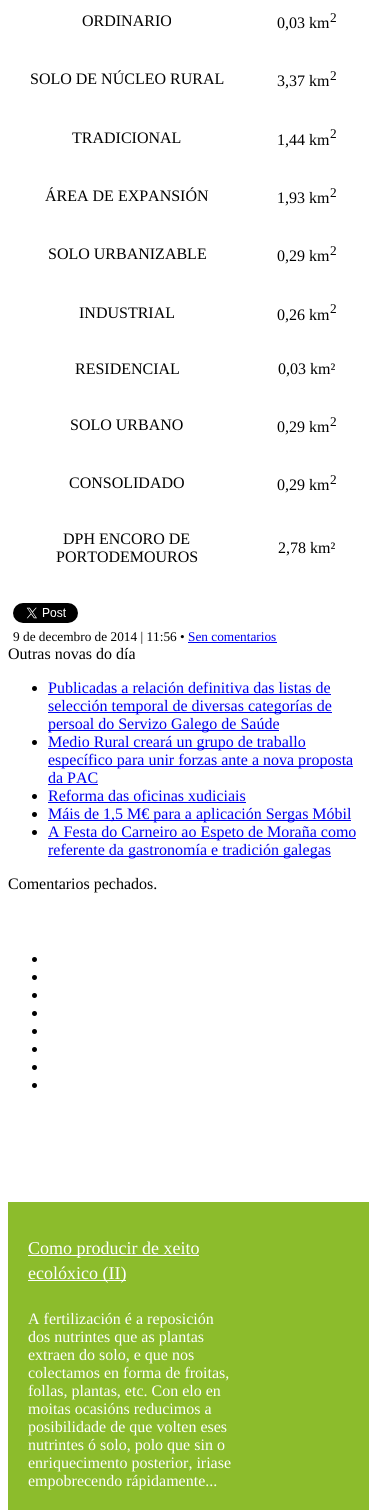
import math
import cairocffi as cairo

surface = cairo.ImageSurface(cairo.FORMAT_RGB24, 377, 1510)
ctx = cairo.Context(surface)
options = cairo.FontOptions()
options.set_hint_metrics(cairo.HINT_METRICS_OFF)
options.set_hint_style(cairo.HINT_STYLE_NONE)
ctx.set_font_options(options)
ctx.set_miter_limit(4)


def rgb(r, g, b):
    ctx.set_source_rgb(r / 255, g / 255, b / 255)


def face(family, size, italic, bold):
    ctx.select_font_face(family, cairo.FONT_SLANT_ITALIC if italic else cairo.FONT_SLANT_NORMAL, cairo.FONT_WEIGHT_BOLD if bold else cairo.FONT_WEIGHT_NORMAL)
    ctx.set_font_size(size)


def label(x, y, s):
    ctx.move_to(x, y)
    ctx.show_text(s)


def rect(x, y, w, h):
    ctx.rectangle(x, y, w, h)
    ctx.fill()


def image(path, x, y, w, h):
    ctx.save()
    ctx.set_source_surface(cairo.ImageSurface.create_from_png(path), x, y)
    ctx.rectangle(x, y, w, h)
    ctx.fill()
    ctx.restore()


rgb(255, 255, 255)
ctx.paint()
face('Liberation Serif', 16, 0, 0)
rgb(0, 0, 0)
label(82, 26, 'ORDINARIO')
label(277, 28, '0,03 km')
face('Liberation Serif', 13.3, 0, 0)
label(330, 22, '2')
face('Liberation Serif', 16, 0, 0)
label(30, 84, 'SOLO DE NÚCLEO RURAL')
label(277, 86, '3,37 km')
face('Liberation Serif', 13.3, 0, 0)
label(330, 80, '2')
face('Liberation Serif', 16, 0, 0)
label(72, 143, 'TRADICIONAL')
label(277, 145, '1,44 km')
face('Liberation Serif', 13.3, 0, 0)
label(330, 138, '2')
face('Liberation Serif', 16, 0, 0)
label(45, 201, 'ÁREA DE EXPANSIÓN')
label(277, 203, '1,93 km')
face('Liberation Serif', 13.3, 0, 0)
label(330, 197, '2')
face('Liberation Serif', 16, 0, 0)
label(48, 259, 'SOLO URBANIZABLE')
label(277, 261, '0,29 km')
face('Liberation Serif', 13.3, 0, 0)
label(330, 255, '2')
face('Liberation Serif', 16, 0, 0)
label(79, 318, 'INDUSTRIAL')
label(277, 320, '0,26 km')
face('Liberation Serif', 13.3, 0, 0)
label(330, 313, '2')
face('Liberation Serif', 16, 0, 0)
label(75, 374, 'RESIDENCIAL')
label(278, 374, '0,03 km²')
label(70, 430, 'SOLO URBANO')
label(277, 432, '0,29 km')
face('Liberation Serif', 13.3, 0, 0)
label(330, 426, '2')
face('Liberation Serif', 16, 0, 0)
label(69, 488, 'CONSOLIDADO')
label(277, 490, '0,29 km')
face('Liberation Serif', 13.3, 0, 0)
label(330, 484, '2')
face('Liberation Serif', 16, 0, 0)
label(63, 544, 'DPH ENCORO DE')
label(56, 562, 'PORTODEMOUROS')
label(278, 553, '2,78 km²')
image('image0.png', 13, 603, 65, 20)
face('Liberation Serif', 13.3, 0, 0)
label(13, 641, '9 de decembro de 2014 | 11:56 •')
rgb(0, 0, 238)
label(188, 641, 'Sen comentarios')
rect(188, 642, 89, 1)
face('Liberation Serif', 16, 0, 0)
rgb(0, 0, 0)
label(8, 659, 'Outras novas do día')
ctx.new_path()
ctx.arc(34.5, 688.5, 2.5, 0, 2 * math.pi)
ctx.fill()
rgb(0, 0, 238)
label(48, 693, 'Publicadas a relación definitiva das listas de')
rect(48, 694, 283, 1)
rect(48, 712, 284, 1)
label(48, 711, 'selección temporal de diversas categorías de')
rect(48, 730, 231, 1)
label(48, 729, 'persoal do Servizo Galego de Saúde')
rgb(0, 0, 0)
ctx.new_path()
ctx.arc(34.5, 742.5, 2.5, 0, 2 * math.pi)
ctx.fill()
rgb(0, 0, 238)
rect(48, 748, 258, 1)
label(48, 747, 'Medio Rural creará un grupo de traballo')
rect(48, 766, 305, 1)
label(48, 765, 'específico para unir forzas ante a nova proposta')
label(48, 783, 'da PAC')
rect(48, 784, 50, 1)
rgb(0, 0, 0)
ctx.new_path()
ctx.arc(34.5, 796.5, 2.5, 0, 2 * math.pi)
ctx.fill()
rgb(0, 0, 238)
label(48, 801, 'Reforma das oficinas xudiciais')
rect(48, 802, 198, 1)
rgb(0, 0, 0)
ctx.new_path()
ctx.arc(34.5, 814.5, 2.5, 0, 2 * math.pi)
ctx.fill()
rgb(0, 0, 238)
rect(48, 820, 303, 1)
label(48, 819, 'Máis de 1,5 M€ para a aplicación Sergas Móbil')
rgb(0, 0, 0)
ctx.new_path()
ctx.arc(34.5, 832.5, 2.5, 0, 2 * math.pi)
ctx.fill()
rgb(0, 0, 238)
rect(48, 838, 308, 1)
label(48, 837, 'A Festa do Carneiro ao Espeto de Moraña como')
rect(48, 856, 283, 1)
label(48, 855, 'referente da gastronomía e tradición galegas')
rgb(0, 0, 0)
label(8, 889, 'Comentarios pechados.')
ctx.new_path()
ctx.arc(34.5, 959.5, 2.5, 0, 2 * math.pi)
ctx.fill()
ctx.arc(34.5, 977.5, 2.5, 0, 2 * math.pi)
ctx.fill()
ctx.arc(34.5, 995.5, 2.5, 0, 2 * math.pi)
ctx.fill()
ctx.arc(34.5, 1013.5, 2.5, 0, 2 * math.pi)
ctx.fill()
ctx.arc(34.5, 1031.5, 2.5, 0, 2 * math.pi)
ctx.fill()
ctx.arc(34.5, 1049.5, 2.5, 0, 2 * math.pi)
ctx.fill()
ctx.arc(34.5, 1067.5, 2.5, 0, 2 * math.pi)
ctx.fill()
ctx.arc(34.5, 1085.5, 2.5, 0, 2 * math.pi)
ctx.fill()
rgb(140, 188, 44)
rect(8, 1202, 361, 308)
rgb(255, 255, 255)
rect(28, 1255, 171, 1)
face('Liberation Serif', 18, 0, 0)
label(28, 1254, 'Como producir de xeito')
rect(28, 1280, 98, 1)
label(28, 1279, 'ecolóxico (II)')
face('Liberation Serif', 16, 0, 0)
label(28, 1324, 'A fertilización é a reposición')
label(28, 1342, 'dos nutrintes que as plantas')
label(28, 1360, 'extraen do solo, e que nos')
label(28, 1378, 'colectamos en forma de froitas,')
label(28, 1396, 'follas, plantas, etc. Con elo en')
label(28, 1414, 'moitas ocasións reducimos a')
label(28, 1432, 'posibilidade de que volten eses')
label(28, 1450, 'nutrintes ó solo, polo que sin o')
label(28, 1468, 'enriquecimento posterior, iriase')
label(28, 1486, 'empobrecendo rápidamente...')
surface.write_to_png('render.png')
